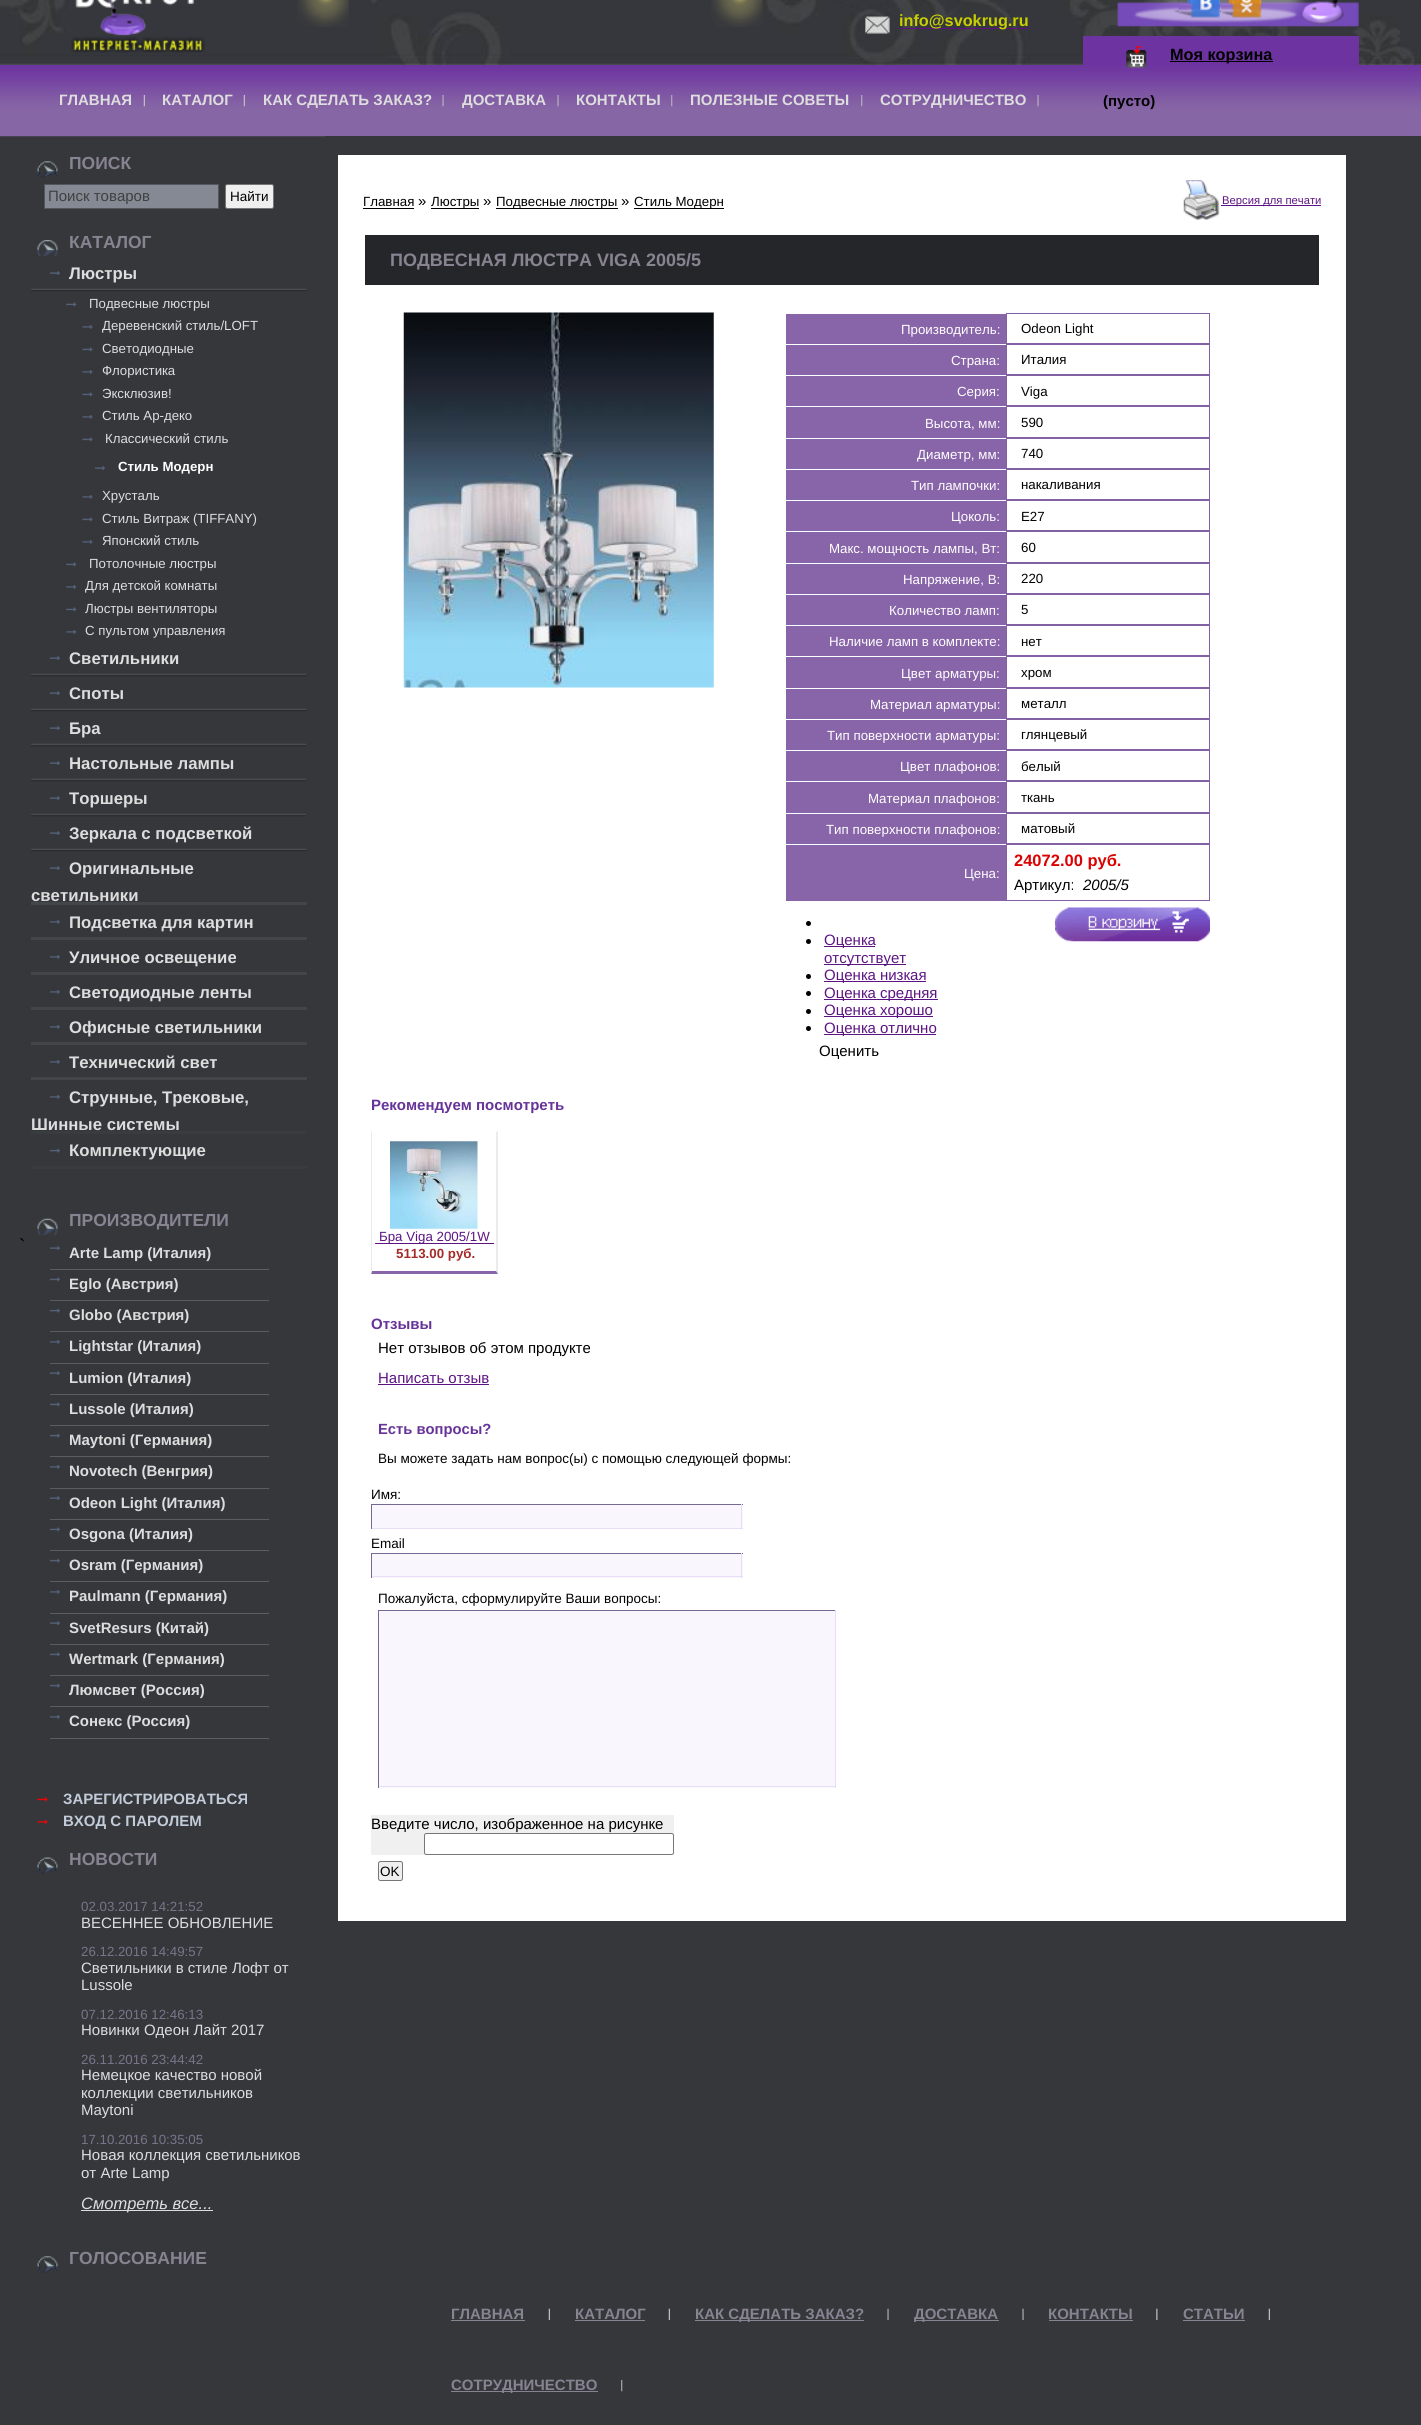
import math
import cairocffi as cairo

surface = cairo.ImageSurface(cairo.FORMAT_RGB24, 1421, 2425)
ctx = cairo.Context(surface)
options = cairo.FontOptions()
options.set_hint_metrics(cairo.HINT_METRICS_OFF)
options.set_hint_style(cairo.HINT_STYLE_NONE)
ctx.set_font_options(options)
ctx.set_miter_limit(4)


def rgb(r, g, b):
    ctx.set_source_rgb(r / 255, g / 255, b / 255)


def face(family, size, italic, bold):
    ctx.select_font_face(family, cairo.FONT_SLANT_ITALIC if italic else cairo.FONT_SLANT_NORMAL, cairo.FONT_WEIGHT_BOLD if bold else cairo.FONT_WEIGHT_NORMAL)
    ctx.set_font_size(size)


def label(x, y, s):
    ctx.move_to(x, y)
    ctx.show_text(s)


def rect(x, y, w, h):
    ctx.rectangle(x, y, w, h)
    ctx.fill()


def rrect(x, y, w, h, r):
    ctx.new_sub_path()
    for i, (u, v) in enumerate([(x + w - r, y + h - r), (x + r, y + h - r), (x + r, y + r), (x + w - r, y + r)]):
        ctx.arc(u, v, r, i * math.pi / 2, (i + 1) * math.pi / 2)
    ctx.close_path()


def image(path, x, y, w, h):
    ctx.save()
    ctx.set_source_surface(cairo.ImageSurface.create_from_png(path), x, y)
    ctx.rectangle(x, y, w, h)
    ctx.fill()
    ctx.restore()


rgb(53, 55, 59)
ctx.paint()
image('image0.png', 0, 0, 1421, 65)
image('image1.png', 71, 0, 134, 53)
image('image2.png', 297, 0, 52, 27)
image('image3.png', 711, 0, 52, 27)
image('image4.png', 865, 16, 25, 18)
rgb(93, 20, 131)
rect(899, 28, 130, 1)
face('Liberation Sans', 16.25, 0, 1)
rgb(200, 207, 1)
label(899, 26, 'info@svokrug.ru')
image('image5.png', 1117, 0, 242, 27)
image('image6.png', 1178, 0, 42, 18)
image('image7.png', 1221, 0, 41, 18)
image('image8.png', 0, 65, 1421, 72)
image('image9.png', 143, 95, 2, 12)
face('Liberation Sans', 15, 0, 1)
rgb(221, 221, 221)
label(59, 105, 'ГЛАВНАЯ')
image('image9.png', 243, 95, 2, 12)
label(162, 105, 'КАТАЛОГ')
image('image10.png', 442, 95, 2, 12)
label(263, 105, 'КАК СДЕЛАТЬ ЗАКАЗ?')
image('image10.png', 557, 95, 2, 12)
label(462, 105, 'ДОСТАВКА')
image('image11.png', 671, 95, 2, 12)
label(576, 105, 'КОНТАКТЫ')
image('image11.png', 861, 95, 2, 12)
label(690, 105, 'ПОЛЕЗНЫЕ СОВЕТЫ')
image('image10.png', 1037, 95, 2, 12)
label(880, 105, 'СОТРУДНИЧЕСТВО')
rgb(109, 52, 161)
rect(1083, 36, 276, 29)
image('image12.png', 1126, 46, 21, 22)
rgb(0, 0, 0)
rect(1170, 61, 103, 1)
face('Liberation Sans', 16.25, 0, 1)
label(1170, 60, 'Моя корзина')
face('Liberation Sans', 15, 0, 1)
label(1103, 106, '(пусто)')
image('image13.png', 37, 161, 21, 17)
face('Liberation Sans', 17.5, 0, 1)
rgb(135, 131, 145)
label(69, 169, 'ПОИСК')
rgb(132, 137, 147)
ctx.rectangle(44.5, 184.5, 174, 24)
ctx.fill_preserve()
rgb(83, 86, 92)
ctx.set_line_width(1)
ctx.stroke()
face('Liberation Sans', 15, 0, 0)
rgb(64, 64, 64)
label(48, 201, 'Поиск товаров')
rgb(239, 239, 239)
rrect(225.5, 184.5, 48, 24, 2)
ctx.fill_preserve()
rgb(118, 118, 118)
ctx.stroke()
face('Liberation Sans', 13.5, 0, 0)
rgb(0, 0, 0)
label(230, 201, 'Найти')
image('image14.png', 37, 240, 21, 17)
face('Liberation Sans', 17.5, 0, 1)
rgb(135, 131, 145)
label(69, 248, 'КАТАЛОГ')
image('image15.png', 31, 288, 276, 4)
image('image16.png', 50, 271, 10, 4)
face('Liberation Sans', 16.75, 0, 1)
rgb(221, 221, 221)
label(69, 279, 'Люстры')
image('image17.png', 66, 302, 11, 5)
face('Liberation Sans', 13.25, 0, 0)
label(89, 308, 'Подвесные люстры')
image('image18.png', 82, 325, 11, 4)
label(102, 330, 'Деревенский стиль/LOFT')
image('image19.png', 82, 347, 11, 5)
label(102, 353, 'Светодиодные')
image('image18.png', 82, 370, 11, 4)
label(102, 375, 'Флористика')
image('image19.png', 82, 392, 11, 5)
label(102, 398, 'Эксклюзив!')
image('image18.png', 82, 415, 11, 4)
label(102, 420, 'Стиль Ар-деко')
image('image19.png', 82, 437, 11, 5)
label(105, 443, 'Классический стиль')
image('image16.png', 95, 466, 10, 4)
face('Liberation Sans', 13.25, 0, 1)
rgb(255, 255, 255)
label(118, 471, 'Стиль Модерн')
image('image18.png', 82, 495, 11, 4)
face('Liberation Sans', 13.25, 0, 0)
rgb(221, 221, 221)
label(102, 500, 'Хрусталь')
image('image19.png', 82, 517, 11, 5)
label(102, 523, 'Стиль Витраж (TIFFANY)')
image('image18.png', 82, 540, 11, 4)
label(102, 545, 'Японский стиль')
image('image17.png', 66, 562, 11, 5)
label(89, 568, 'Потолочные люстры')
image('image20.png', 66, 585, 11, 4)
label(85, 590, 'Для детской комнаты')
image('image17.png', 66, 607, 11, 5)
label(85, 613, 'Люстры вентиляторы')
image('image20.png', 66, 630, 11, 4)
label(85, 635, 'С пультом управления')
image('image15.png', 31, 673, 276, 4)
image('image16.png', 50, 656, 10, 4)
face('Liberation Sans', 16.75, 0, 1)
label(69, 664, 'Светильники')
image('image15.png', 31, 708, 276, 4)
image('image16.png', 50, 691, 10, 4)
label(69, 699, 'Споты')
image('image15.png', 31, 743, 276, 4)
image('image16.png', 50, 726, 10, 4)
label(69, 734, 'Бра')
image('image15.png', 31, 778, 276, 4)
image('image16.png', 50, 761, 10, 4)
label(69, 769, 'Настольные лампы')
image('image15.png', 31, 813, 276, 4)
image('image16.png', 50, 796, 10, 4)
label(69, 804, 'Торшеры')
image('image15.png', 31, 848, 276, 4)
image('image16.png', 50, 831, 10, 4)
label(69, 839, 'Зеркала с подсветкой')
rgb(66, 70, 73)
rect(31, 902, 276, 3)
image('image16.png', 50, 866, 10, 4)
rgb(221, 221, 221)
label(69, 874, 'Оригинальные')
label(31, 901, 'светильники')
rgb(66, 70, 73)
rect(31, 937, 276, 3)
image('image21.png', 50, 920, 10, 4)
rgb(221, 221, 221)
label(69, 928, 'Подсветка для картин')
rgb(66, 70, 73)
rect(31, 972, 276, 3)
image('image21.png', 50, 955, 10, 4)
rgb(221, 221, 221)
label(69, 963, 'Уличное освещение')
rgb(66, 70, 73)
rect(31, 1007, 276, 3)
image('image21.png', 50, 990, 10, 4)
rgb(221, 221, 221)
label(69, 998, 'Светодиодные ленты')
rgb(66, 70, 73)
rect(31, 1042, 276, 3)
image('image21.png', 50, 1025, 10, 4)
rgb(221, 221, 221)
label(69, 1033, 'Офисные светильники')
rgb(66, 70, 73)
rect(31, 1077, 276, 3)
image('image21.png', 50, 1060, 10, 4)
rgb(221, 221, 221)
label(69, 1068, 'Технический свет')
rgb(57, 60, 63)
rect(31, 1131, 276, 3)
image('image21.png', 50, 1095, 10, 4)
rgb(221, 221, 221)
label(69, 1103, 'Струнные, Трековые,')
label(31, 1130, 'Шинные системы')
rgb(57, 60, 63)
rect(31, 1166, 276, 3)
image('image22.png', 50, 1148, 10, 5)
rgb(221, 221, 221)
label(69, 1156, 'Комплектующие')
image('image23.png', 37, 1218, 21, 17)
face('Liberation Sans', 17.5, 0, 1)
rgb(135, 131, 145)
label(69, 1226, 'ПРОИЗВОДИТЕЛИ')
face('Liberation Sans', 20, 0, 0)
rgb(0, 0, 0)
label(19, 1253, '`')
image('image16.png', 50, 1246, 10, 4)
rgb(93, 93, 93)
rect(50, 1269, 219, 1)
face('Liberation Sans', 15, 0, 1)
rgb(221, 221, 221)
label(69, 1258, 'Arte Lamp (Италия)')
image('image24.png', 50, 1277, 10, 5)
rgb(93, 93, 93)
rect(50, 1300, 219, 1)
rgb(221, 221, 221)
label(69, 1289, 'Eglo (Австрия)')
image('image22.png', 50, 1308, 10, 5)
rgb(93, 93, 93)
rect(50, 1331, 219, 1)
rgb(221, 221, 221)
label(69, 1320, 'Globo (Австрия)')
image('image21.png', 50, 1340, 10, 4)
rgb(93, 93, 93)
rect(50, 1363, 219, 1)
rgb(221, 221, 221)
label(69, 1351, 'Lightstar (Италия)')
image('image16.png', 50, 1371, 10, 4)
rgb(93, 93, 93)
rect(50, 1394, 219, 1)
rgb(221, 221, 221)
label(69, 1383, 'Lumion (Италия)')
image('image24.png', 50, 1402, 10, 5)
rgb(93, 93, 93)
rect(50, 1425, 219, 1)
rgb(221, 221, 221)
label(69, 1414, 'Lussole (Италия)')
image('image22.png', 50, 1433, 10, 5)
rgb(93, 93, 93)
rect(50, 1456, 219, 1)
rgb(221, 221, 221)
label(69, 1445, 'Maytoni (Германия)')
image('image21.png', 50, 1465, 10, 4)
rgb(93, 93, 93)
rect(50, 1488, 219, 1)
rgb(221, 221, 221)
label(69, 1476, 'Novotech (Венгрия)')
image('image16.png', 50, 1496, 10, 4)
rgb(93, 93, 93)
rect(50, 1519, 219, 1)
rgb(221, 221, 221)
label(69, 1508, 'Odeon Light (Италия)')
image('image24.png', 50, 1527, 10, 5)
rgb(93, 93, 93)
rect(50, 1550, 219, 1)
rgb(221, 221, 221)
label(69, 1539, 'Osgona (Италия)')
image('image22.png', 50, 1558, 10, 5)
rgb(93, 93, 93)
rect(50, 1581, 219, 1)
rgb(221, 221, 221)
label(69, 1570, 'Osram (Германия)')
image('image21.png', 50, 1590, 10, 4)
rgb(93, 93, 93)
rect(50, 1613, 219, 1)
rgb(221, 221, 221)
label(69, 1601, 'Paulmann (Германия)')
image('image16.png', 50, 1621, 10, 4)
rgb(93, 93, 93)
rect(50, 1644, 219, 1)
rgb(221, 221, 221)
label(69, 1633, 'SvetResurs (Китай)')
image('image24.png', 50, 1652, 10, 5)
rgb(93, 93, 93)
rect(50, 1675, 219, 1)
rgb(221, 221, 221)
label(69, 1664, 'Wertmark (Германия)')
image('image22.png', 50, 1683, 10, 5)
rgb(93, 93, 93)
rect(50, 1706, 219, 1)
rgb(221, 221, 221)
label(69, 1695, 'Люмсвет (Россия)')
image('image21.png', 50, 1715, 10, 4)
rgb(93, 93, 93)
rect(50, 1738, 219, 1)
rgb(221, 221, 221)
label(69, 1726, 'Сонекс (Россия)')
image('image25.png', 37, 1797, 11, 5)
rgb(194, 203, 216)
label(63, 1804, 'ЗАРЕГИСТРИРОВАТЬСЯ')
image('image26.png', 37, 1820, 11, 4)
label(63, 1826, 'ВХОД С ПАРОЛЕМ')
image('image27.png', 37, 1857, 21, 17)
face('Liberation Sans', 17.5, 0, 1)
rgb(135, 131, 145)
label(69, 1865, 'НОВОСТИ')
face('Liberation Sans', 13.3, 0, 0)
rgb(122, 116, 138)
label(81, 1911, '02.03.2017 14:21:52')
face('Liberation Sans', 15, 0, 0)
rgb(221, 221, 221)
label(81, 1928, 'ВЕСЕННЕЕ ОБНОВЛЕНИЕ')
face('Liberation Sans', 13.3, 0, 0)
rgb(122, 116, 138)
label(81, 1956, '26.12.2016 14:49:57')
face('Liberation Sans', 15, 0, 0)
rgb(221, 221, 221)
label(81, 1973, 'Светильники в стиле Лофт от')
label(81, 1990, 'Lussole')
face('Liberation Sans', 13.3, 0, 0)
rgb(122, 116, 138)
label(81, 2019, '07.12.2016 12:46:13')
face('Liberation Sans', 15, 0, 0)
rgb(221, 221, 221)
label(81, 2035, 'Новинки Одеон Лайт 2017')
face('Liberation Sans', 13.3, 0, 0)
rgb(122, 116, 138)
label(81, 2064, '26.11.2016 23:44:42')
face('Liberation Sans', 15, 0, 0)
rgb(221, 221, 221)
label(81, 2080, 'Немецкое качество новой')
label(81, 2098, 'коллекции светильников')
label(81, 2115, 'Maytoni')
face('Liberation Sans', 13.3, 0, 0)
rgb(122, 116, 138)
label(81, 2144, '17.10.2016 10:35:05')
face('Liberation Sans', 15, 0, 0)
rgb(221, 221, 221)
label(81, 2160, 'Новая коллекция светильников')
label(81, 2178, 'от Arte Lamp')
rect(81, 2210, 132, 1)
face('Liberation Sans', 16.5, 1, 0)
label(81, 2209, 'Смотреть все...')
image('image13.png', 37, 2256, 21, 17)
face('Liberation Sans', 17.5, 0, 1)
rgb(135, 131, 145)
label(69, 2264, 'ГОЛОСОВАНИЕ')
rgb(53, 55, 59)
rect(325, 136, 1096, 1)
rgb(255, 255, 255)
rect(338, 155, 1008, 1766)
face('Liberation Sans', 13.3, 0, 0)
rgb(0, 0, 0)
label(363, 206, 'Главная')
rect(363, 208, 51, 1)
face('Liberation Sans', 15, 0, 0)
label(418, 206, '»')
rect(431, 208, 48, 1)
face('Liberation Sans', 13.3, 0, 0)
label(431, 206, 'Люстры')
face('Liberation Sans', 15, 0, 0)
label(483, 206, '»')
rect(496, 208, 122, 1)
face('Liberation Sans', 13.3, 0, 0)
label(496, 206, 'Подвесные люстры')
face('Liberation Sans', 15, 0, 0)
label(621, 206, '»')
rect(634, 208, 90, 1)
face('Liberation Sans', 13.3, 0, 0)
label(634, 206, 'Стиль Модерн')
image('image28.png', 1183, 180, 37, 40)
rgb(93, 20, 131)
rect(1221, 205, 100, 1)
face('Liberation Sans', 11.25, 0, 0)
label(1222, 204, 'Версия для печати')
rgb(37, 38, 41)
rect(365, 235, 954, 50)
face('Liberation Sans', 18, 0, 1)
rgb(135, 131, 145)
label(390, 266, 'ПОДВЕСНАЯ ЛЮСТРА VIGA 2005/5')
image('image29.png', 403, 312, 311, 376)
rgb(136, 100, 168)
rect(786, 314, 220, 30)
face('Liberation Sans', 13.3, 0, 0)
rgb(255, 255, 255)
label(901, 334, 'Производитель:')
ctx.rectangle(1006.5, 313.5, 203, 30)
rgb(132, 97, 165)
ctx.stroke()
rgb(0, 0, 0)
label(1021, 333, 'Odeon Light')
rgb(136, 100, 168)
rect(786, 345, 220, 30)
rgb(255, 255, 255)
label(951, 365, 'Страна:')
ctx.rectangle(1006.5, 344.5, 203, 30)
rgb(132, 97, 165)
ctx.stroke()
rgb(0, 0, 0)
label(1021, 364, 'Италия')
rgb(136, 100, 168)
rect(786, 376, 220, 30)
rgb(255, 255, 255)
label(957, 396, 'Серия:')
ctx.rectangle(1006.5, 375.5, 203, 30)
rgb(132, 97, 165)
ctx.stroke()
rgb(0, 0, 0)
label(1021, 396, 'Viga')
rgb(136, 100, 168)
rect(786, 407, 220, 31)
rgb(255, 255, 255)
label(925, 428, 'Высота, мм:')
ctx.rectangle(1006.5, 406.5, 203, 31)
rgb(132, 97, 165)
ctx.stroke()
rgb(0, 0, 0)
label(1021, 427, '590')
rgb(136, 100, 168)
rect(786, 439, 220, 30)
rgb(255, 255, 255)
label(917, 459, 'Диаметр, мм:')
ctx.rectangle(1006.5, 438.5, 203, 30)
rgb(132, 97, 165)
ctx.stroke()
rgb(0, 0, 0)
label(1021, 458, '740')
rgb(136, 100, 168)
rect(786, 470, 220, 30)
rgb(255, 255, 255)
label(911, 490, 'Тип лампочки:')
ctx.rectangle(1006.5, 469.5, 203, 30)
rgb(132, 97, 165)
ctx.stroke()
rgb(0, 0, 0)
label(1021, 489, 'накаливания')
rgb(136, 100, 168)
rect(786, 501, 220, 30)
rgb(255, 255, 255)
label(951, 521, 'Цоколь:')
ctx.rectangle(1006.5, 500.5, 203, 30)
rgb(132, 97, 165)
ctx.stroke()
rgb(0, 0, 0)
label(1021, 521, 'Е27')
rgb(136, 100, 168)
rect(786, 532, 220, 31)
rgb(255, 255, 255)
label(829, 553, 'Макс. мощность лампы, Вт:')
ctx.rectangle(1006.5, 531.5, 203, 31)
rgb(132, 97, 165)
ctx.stroke()
rgb(0, 0, 0)
label(1021, 552, '60')
rgb(136, 100, 168)
rect(786, 564, 220, 30)
rgb(255, 255, 255)
label(903, 584, 'Напряжение, В:')
ctx.rectangle(1006.5, 563.5, 203, 30)
rgb(132, 97, 165)
ctx.stroke()
rgb(0, 0, 0)
label(1021, 583, '220')
rgb(136, 100, 168)
rect(786, 595, 220, 30)
rgb(255, 255, 255)
label(889, 615, 'Количество ламп:')
ctx.rectangle(1006.5, 594.5, 203, 30)
rgb(132, 97, 165)
ctx.stroke()
rgb(0, 0, 0)
label(1021, 614, '5')
rgb(136, 100, 168)
rect(786, 626, 220, 30)
rgb(255, 255, 255)
label(829, 646, 'Наличие ламп в комплекте:')
ctx.rectangle(1006.5, 625.5, 203, 30)
rgb(132, 97, 165)
ctx.stroke()
rgb(0, 0, 0)
label(1021, 646, 'нет')
rgb(136, 100, 168)
rect(786, 657, 220, 31)
rgb(255, 255, 255)
label(901, 678, 'Цвет арматуры:')
ctx.rectangle(1006.5, 656.5, 203, 31)
rgb(132, 97, 165)
ctx.stroke()
rgb(0, 0, 0)
label(1021, 677, 'хром')
rgb(136, 100, 168)
rect(786, 689, 220, 30)
rgb(255, 255, 255)
label(870, 709, 'Материал арматуры:')
ctx.rectangle(1006.5, 688.5, 203, 30)
rgb(132, 97, 165)
ctx.stroke()
rgb(0, 0, 0)
label(1021, 708, 'металл')
rgb(136, 100, 168)
rect(786, 720, 220, 30)
rgb(255, 255, 255)
label(827, 740, 'Тип поверхности арматуры:')
ctx.rectangle(1006.5, 719.5, 203, 30)
rgb(132, 97, 165)
ctx.stroke()
rgb(0, 0, 0)
label(1021, 739, 'глянцевый')
rgb(136, 100, 168)
rect(786, 751, 220, 30)
rgb(255, 255, 255)
label(900, 771, 'Цвет плафонов:')
ctx.rectangle(1006.5, 750.5, 203, 30)
rgb(132, 97, 165)
ctx.stroke()
rgb(0, 0, 0)
label(1021, 771, 'белый')
rgb(136, 100, 168)
rect(786, 782, 220, 31)
rgb(255, 255, 255)
label(868, 803, 'Материал плафонов:')
ctx.rectangle(1006.5, 781.5, 203, 31)
rgb(132, 97, 165)
ctx.stroke()
rgb(0, 0, 0)
label(1021, 802, 'ткань')
rgb(136, 100, 168)
rect(786, 814, 220, 30)
rgb(255, 255, 255)
label(826, 834, 'Тип поверхности плафонов:')
ctx.rectangle(1006.5, 813.5, 203, 30)
rgb(132, 97, 165)
ctx.stroke()
rgb(0, 0, 0)
label(1021, 833, 'матовый')
rgb(136, 100, 168)
rect(786, 845, 220, 56)
rgb(255, 255, 255)
label(964, 878, 'Цена:')
ctx.rectangle(1006.5, 844.5, 203, 56)
rgb(132, 97, 165)
ctx.stroke()
face('Liberation Sans', 16.5, 0, 1)
rgb(218, 3, 3)
label(1014, 866, '24072.00 руб.')
face('Liberation Sans', 15, 0, 0)
rgb(0, 0, 0)
label(1014, 890, 'Артикул:')
face('Liberation Sans', 15, 1, 0)
label(1083, 890, '2005/5')
image('image30.png', 1055, 907, 155, 35)
ctx.arc(808.5, 923.5, 2.5, 0, 2 * math.pi)
ctx.fill()
ctx.arc(808.5, 941.5, 2.5, 0, 2 * math.pi)
ctx.fill()
rgb(93, 20, 131)
rect(824, 946, 51, 1)
face('Liberation Sans', 15, 0, 0)
label(824, 945, 'Оценка')
rect(824, 964, 82, 1)
label(824, 963, 'отсутствует')
rgb(0, 0, 0)
ctx.new_path()
ctx.arc(808.5, 976.5, 2.5, 0, 2 * math.pi)
ctx.fill()
rgb(93, 20, 131)
rect(824, 981, 102, 1)
label(824, 980, 'Оценка низкая')
rgb(0, 0, 0)
ctx.new_path()
ctx.arc(808.5, 993.5, 2.5, 0, 2 * math.pi)
ctx.fill()
rgb(93, 20, 131)
rect(824, 999, 114, 1)
label(824, 998, 'Оценка средняя')
rgb(0, 0, 0)
ctx.new_path()
ctx.arc(808.5, 1011.5, 2.5, 0, 2 * math.pi)
ctx.fill()
rgb(93, 20, 131)
rect(824, 1016, 109, 1)
label(824, 1015, 'Оценка хорошо')
rgb(0, 0, 0)
ctx.new_path()
ctx.arc(808.5, 1028.5, 2.5, 0, 2 * math.pi)
ctx.fill()
rgb(93, 20, 131)
rect(824, 1034, 112, 1)
label(824, 1033, 'Оценка отлично')
rgb(0, 0, 0)
label(819, 1056, 'Оценить')
face('Liberation Sans', 15, 0, 1)
rgb(102, 51, 153)
label(371, 1110, 'Рекомендуем посмотреть')
rgb(235, 235, 235)
ctx.new_path()
ctx.move_to(498, 1131)
ctx.line_to(498, 1274)
ctx.line_to(496, 1271)
ctx.line_to(496, 1132)
ctx.close_path()
ctx.fill()
rgb(136, 100, 168)
ctx.new_path()
ctx.move_to(498, 1274)
ctx.line_to(371, 1274)
ctx.line_to(372, 1271)
ctx.line_to(496, 1271)
ctx.close_path()
ctx.fill()
rgb(235, 235, 235)
ctx.new_path()
ctx.move_to(371, 1274)
ctx.line_to(371, 1131)
ctx.line_to(372, 1132)
ctx.line_to(372, 1271)
ctx.close_path()
ctx.fill()
image('image31.png', 390, 1141, 88, 88)
rgb(93, 20, 131)
rect(375, 1243, 119, 1)
face('Liberation Sans', 13.3, 0, 0)
label(379, 1241, 'Бра Viga 2005/1W')
face('Liberation Sans', 13.3, 0, 1)
rgb(165, 42, 42)
label(396, 1258, '5113.00 руб.')
face('Liberation Sans', 15, 0, 1)
rgb(102, 51, 153)
label(371, 1329, 'Отзывы')
face('Liberation Sans', 15, 0, 0)
rgb(0, 0, 0)
label(378, 1353, 'Нет отзывов об этом продукте')
rgb(93, 20, 131)
label(378, 1383, 'Написать отзыв')
rect(378, 1384, 111, 1)
face('Liberation Sans', 14.75, 0, 1)
rgb(102, 51, 153)
label(378, 1434, 'Есть вопросы?')
face('Liberation Sans', 13.5, 0, 0)
rgb(0, 0, 0)
label(378, 1463, 'Вы можете задать нам вопрос(ы) с помощью следующей формы:')
label(371, 1499, 'Имя:')
rgb(249, 247, 253)
rect(372, 1505, 371, 23)
rgb(117, 106, 147)
rect(371, 1504, 372, 1)
rgb(232, 223, 247)
rect(741, 1504, 1, 25)
rect(371, 1528, 372, 1)
rgb(117, 106, 147)
rect(371, 1504, 1, 25)
rgb(0, 0, 0)
label(371, 1548, 'Email')
rgb(249, 247, 253)
rect(372, 1554, 371, 24)
rgb(117, 106, 147)
rect(371, 1553, 372, 1)
rgb(232, 223, 247)
rect(741, 1553, 1, 25)
rect(371, 1576, 372, 1)
rgb(117, 106, 147)
rect(371, 1553, 1, 25)
rgb(0, 0, 0)
label(378, 1603, 'Пожалуйста, сформулируйте Ваши вопросы:')
rgb(249, 247, 253)
rect(379, 1611, 456, 177)
rgb(117, 106, 147)
rect(378, 1610, 458, 1)
rgb(232, 223, 247)
rect(835, 1610, 1, 178)
rect(378, 1786, 458, 1)
rgb(117, 106, 147)
rect(378, 1610, 1, 178)
rgb(240, 240, 240)
rect(371, 1815, 303, 40)
face('Liberation Sans', 15, 0, 0)
rgb(0, 0, 0)
label(371, 1829, 'Введите число, изображенное на рисунке')
rgb(255, 255, 255)
rrect(424.5, 1833.5, 249, 21, 2)
ctx.fill_preserve()
rgb(118, 118, 118)
ctx.stroke()
rgb(239, 239, 239)
rrect(378.5, 1861.5, 24, 19, 2)
ctx.fill_preserve()
rgb(118, 118, 118)
ctx.stroke()
face('Liberation Sans', 13.5, 0, 0)
rgb(0, 0, 0)
label(380, 1876, 'OK')
image('image32.png', 548, 2308, 2, 12)
face('Liberation Sans', 15, 0, 1)
rgb(135, 131, 145)
label(451, 2319, 'ГЛАВНАЯ')
rect(451, 2320, 74, 1)
image('image32.png', 668, 2308, 2, 12)
label(575, 2319, 'КАТАЛОГ')
rect(575, 2320, 70, 1)
image('image33.png', 887, 2308, 2, 12)
rect(695, 2320, 169, 1)
label(695, 2319, 'КАК СДЕЛАТЬ ЗАКАЗ?')
image('image33.png', 1022, 2308, 2, 12)
rect(914, 2320, 85, 1)
label(914, 2319, 'ДОСТАВКА')
image('image34.png', 1156, 2308, 2, 12)
label(1048, 2319, 'КОНТАКТЫ')
rect(1049, 2320, 84, 1)
image('image32.png', 1268, 2308, 2, 12)
label(1183, 2319, 'СТАТЬИ')
rect(1183, 2320, 62, 1)
image('image35.png', 621, 2380, 2, 12)
rect(451, 2391, 147, 1)
label(451, 2390, 'СОТРУДНИЧЕСТВО')
surface.write_to_png('render.png')
